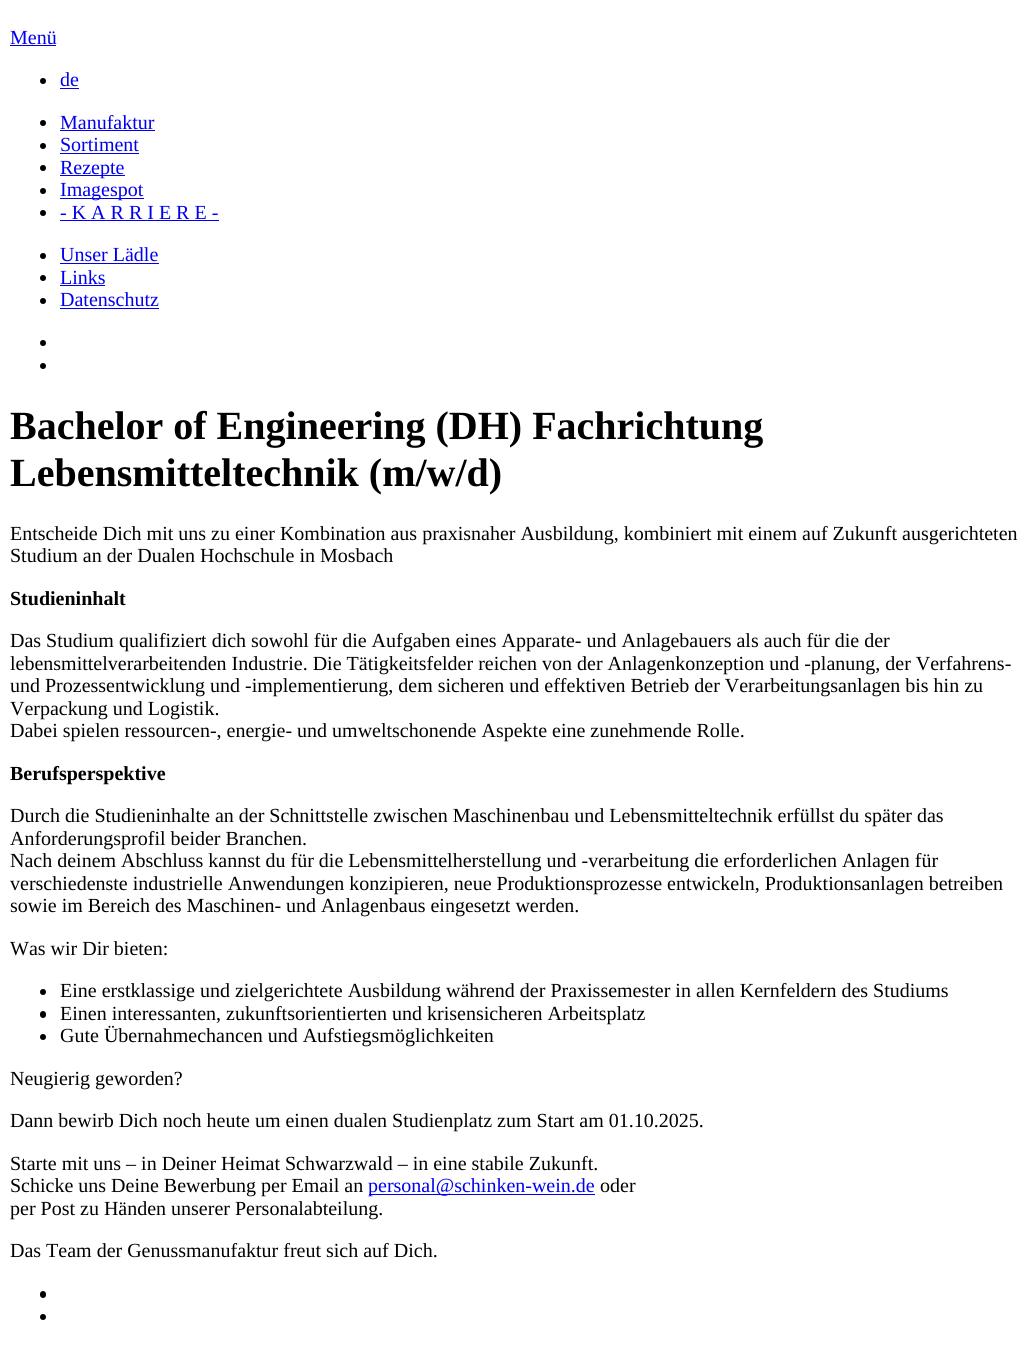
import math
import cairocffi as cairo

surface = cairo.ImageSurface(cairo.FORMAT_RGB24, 1029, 1347)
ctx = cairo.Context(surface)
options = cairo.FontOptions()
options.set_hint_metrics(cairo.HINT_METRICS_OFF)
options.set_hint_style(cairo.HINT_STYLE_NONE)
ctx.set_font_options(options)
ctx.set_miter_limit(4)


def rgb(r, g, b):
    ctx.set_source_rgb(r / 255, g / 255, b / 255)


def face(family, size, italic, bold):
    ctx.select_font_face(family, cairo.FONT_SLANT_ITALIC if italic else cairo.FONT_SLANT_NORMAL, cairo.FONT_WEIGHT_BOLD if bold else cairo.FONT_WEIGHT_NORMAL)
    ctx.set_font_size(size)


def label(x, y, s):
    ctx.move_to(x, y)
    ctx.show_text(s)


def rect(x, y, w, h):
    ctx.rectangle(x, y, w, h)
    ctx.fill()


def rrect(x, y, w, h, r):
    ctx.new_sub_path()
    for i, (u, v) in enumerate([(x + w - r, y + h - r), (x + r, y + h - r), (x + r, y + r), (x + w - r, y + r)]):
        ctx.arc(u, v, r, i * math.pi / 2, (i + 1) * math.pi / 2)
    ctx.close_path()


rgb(255, 255, 255)
ctx.paint()
face('Liberation Serif', 20, 0, 0)
rgb(0, 0, 238)
label(10, 44, 'Menü')
rect(10, 45, 46, 1)
rgb(0, 0, 0)
ctx.new_path()
ctx.arc(43, 81, 3, 0, 2 * math.pi)
ctx.fill()
rgb(0, 0, 238)
label(60, 86, 'de')
rect(60, 88, 19, 1)
rgb(0, 0, 0)
ctx.new_path()
ctx.arc(43, 123, 3, 0, 2 * math.pi)
ctx.fill()
rgb(0, 0, 238)
label(60, 129, 'Manufaktur')
rect(60, 130, 95, 1)
rgb(0, 0, 0)
ctx.new_path()
ctx.arc(43, 146, 3, 0, 2 * math.pi)
ctx.fill()
rgb(0, 0, 238)
label(60, 151, 'Sortiment')
rect(60, 153, 79, 1)
rgb(0, 0, 0)
ctx.new_path()
ctx.arc(43, 168, 3, 0, 2 * math.pi)
ctx.fill()
rgb(0, 0, 238)
rect(60, 175, 65, 1)
label(60, 174, 'Rezepte')
rgb(0, 0, 0)
ctx.new_path()
ctx.arc(43, 191, 3, 0, 2 * math.pi)
ctx.fill()
rgb(0, 0, 238)
rect(60, 198, 84, 1)
label(60, 196, 'Imagespot')
rgb(0, 0, 0)
ctx.new_path()
ctx.arc(43, 213, 3, 0, 2 * math.pi)
ctx.fill()
rgb(0, 0, 238)
label(60, 219, '- K A R R I E R E -')
rect(60, 220, 159, 1)
rgb(0, 0, 0)
ctx.new_path()
ctx.arc(43, 256, 3, 0, 2 * math.pi)
ctx.fill()
rgb(0, 0, 238)
label(60, 261, 'Unser Lädle')
rect(60, 263, 99, 1)
rgb(0, 0, 0)
ctx.new_path()
ctx.arc(43, 278, 3, 0, 2 * math.pi)
ctx.fill()
rgb(0, 0, 238)
label(60, 284, 'Links')
rect(60, 285, 45, 1)
rgb(0, 0, 0)
ctx.new_path()
ctx.arc(43, 301, 3, 0, 2 * math.pi)
ctx.fill()
rgb(0, 0, 238)
label(60, 306, 'Datenschutz')
rect(60, 308, 99, 1)
rgb(0, 0, 0)
ctx.new_path()
ctx.arc(43, 343, 3, 0, 2 * math.pi)
ctx.fill()
ctx.arc(43, 366, 3, 0, 2 * math.pi)
ctx.fill()
face('Liberation Serif', 40, 0, 1)
label(10, 439, 'Bachelor of Engineering (DH) Fachrichtung')
label(10, 486, 'Lebensmitteltechnik (m/w/d)')
face('Liberation Serif', 20, 0, 0)
label(10, 540, 'Entscheide Dich mit uns zu einer Kombination aus praxisnaher Ausbildung, kombiniert mit einem auf Zukunft ausgerichteten')
label(10, 562, 'Studium an der Dualen Hochschule in Mosbach')
face('Liberation Serif', 20, 0, 1)
label(10, 605, 'Studieninhalt')
face('Liberation Serif', 20, 0, 0)
label(10, 647, 'Das Studium qualifiziert dich sowohl für die Aufgaben eines Apparate- und Anlagebauers als auch für die der')
label(10, 670, 'lebensmittelverarbeitenden Industrie. Die Tätigkeitsfelder reichen von der Anlagenkonzeption und -planung, der Verfahrens-')
label(10, 692, 'und Prozessentwicklung und -implementierung, dem sicheren und effektiven Betrieb der Verarbeitungsanlagen bis hin zu')
label(10, 715, 'Verpackung und Logistik.')
label(10, 737, 'Dabei spielen ressourcen-, energie- und umweltschonende Aspekte eine zunehmende Rolle.')
face('Liberation Serif', 20, 0, 1)
label(10, 780, 'Berufsperspektive')
face('Liberation Serif', 20, 0, 0)
label(10, 822, 'Durch die Studieninhalte an der Schnittstelle zwischen Maschinenbau und Lebensmitteltechnik erfüllst du später das')
label(10, 845, 'Anforderungsprofil beider Branchen.')
label(10, 867, 'Nach deinem Abschluss kannst du für die Lebensmittelherstellung und -verarbeitung die erforderlichen Anlagen für')
label(10, 890, 'verschiedenste industrielle Anwendungen konzipieren, neue Produktionsprozesse entwickeln, Produktionsanlagen betreiben')
label(10, 912, 'sowie im Bereich des Maschinen- und Anlagenbaus eingesetzt werden.')
label(10, 955, 'Was wir Dir bieten:')
ctx.new_path()
ctx.arc(43, 992, 3, 0, 2 * math.pi)
ctx.fill()
label(60, 997, 'Eine erstklassige und zielgerichtete Ausbildung während der Praxissemester in allen Kernfeldern des Studiums')
rrect(40, 1011, 6, 7, 3)
ctx.fill()
label(60, 1020, 'Einen interessanten, zukunftsorientierten und krisensicheren Arbeitsplatz')
ctx.new_path()
ctx.arc(43, 1037, 3, 0, 2 * math.pi)
ctx.fill()
label(60, 1042, 'Gute Übernahmechancen und Aufstiegsmöglichkeiten')
label(10, 1085, 'Neugierig geworden?')
label(10, 1127, 'Dann bewirb Dich noch heute um einen dualen Studienplatz zum Start am 01.10.2025.')
label(10, 1170, 'Starte mit uns – in Deiner Heimat Schwarzwald – in eine stabile Zukunft.')
label(10, 1192, 'Schicke uns Deine Bewerbung per Email an')
rgb(0, 0, 238)
rect(369, 1194, 226, 1)
label(368, 1192, 'personal@schinken-wein.de')
rgb(0, 0, 0)
label(600, 1192, 'oder')
label(10, 1215, 'per Post zu Händen unserer Personalabteilung.')
label(10, 1257, 'Das Team der Genussmanufaktur freut sich auf Dich.')
rrect(40, 1291, 6, 7, 3)
ctx.fill()
ctx.arc(43, 1317, 3, 0, 2 * math.pi)
ctx.fill()
surface.write_to_png('render.png')
